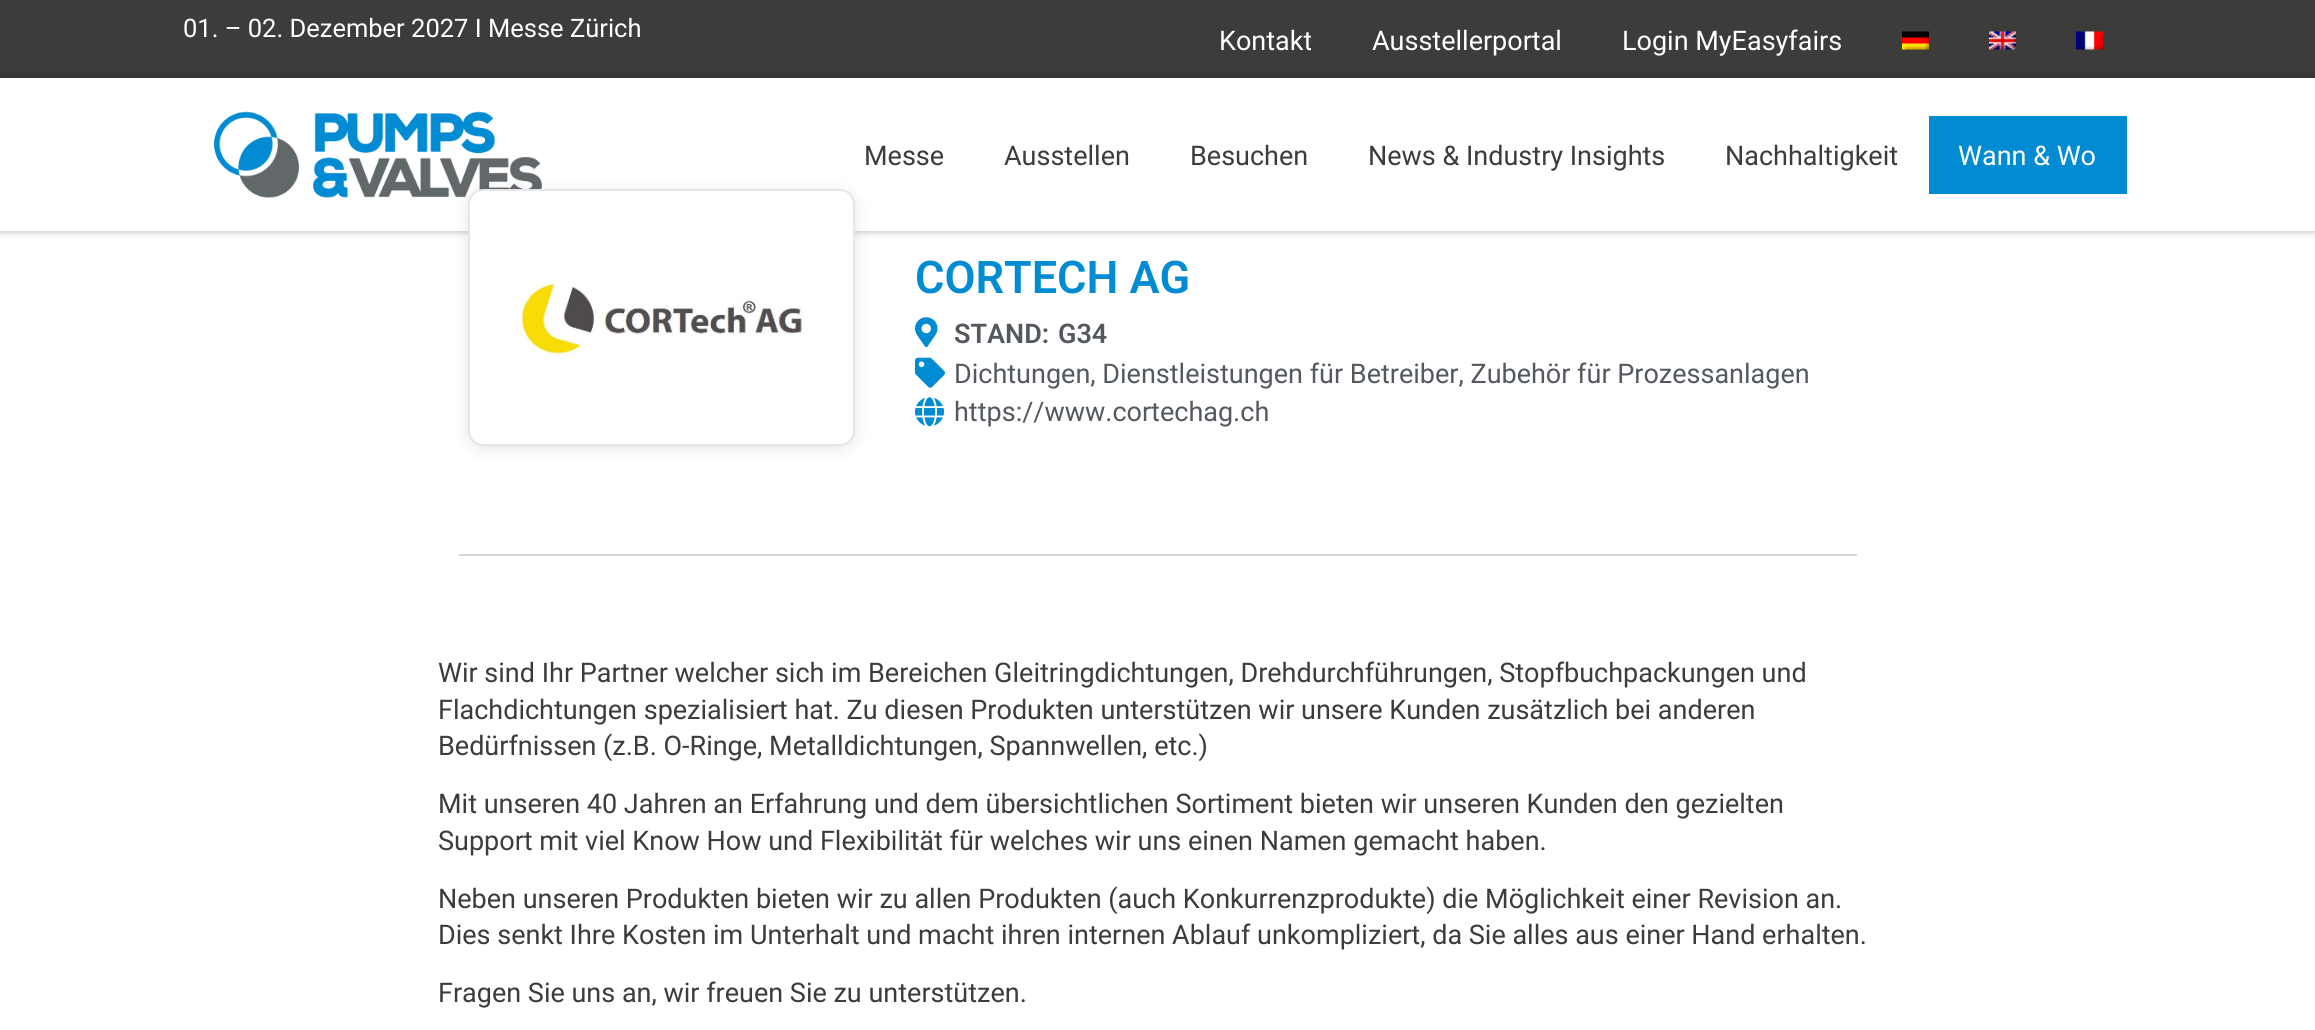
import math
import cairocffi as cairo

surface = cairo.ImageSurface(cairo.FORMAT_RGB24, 2315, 1030)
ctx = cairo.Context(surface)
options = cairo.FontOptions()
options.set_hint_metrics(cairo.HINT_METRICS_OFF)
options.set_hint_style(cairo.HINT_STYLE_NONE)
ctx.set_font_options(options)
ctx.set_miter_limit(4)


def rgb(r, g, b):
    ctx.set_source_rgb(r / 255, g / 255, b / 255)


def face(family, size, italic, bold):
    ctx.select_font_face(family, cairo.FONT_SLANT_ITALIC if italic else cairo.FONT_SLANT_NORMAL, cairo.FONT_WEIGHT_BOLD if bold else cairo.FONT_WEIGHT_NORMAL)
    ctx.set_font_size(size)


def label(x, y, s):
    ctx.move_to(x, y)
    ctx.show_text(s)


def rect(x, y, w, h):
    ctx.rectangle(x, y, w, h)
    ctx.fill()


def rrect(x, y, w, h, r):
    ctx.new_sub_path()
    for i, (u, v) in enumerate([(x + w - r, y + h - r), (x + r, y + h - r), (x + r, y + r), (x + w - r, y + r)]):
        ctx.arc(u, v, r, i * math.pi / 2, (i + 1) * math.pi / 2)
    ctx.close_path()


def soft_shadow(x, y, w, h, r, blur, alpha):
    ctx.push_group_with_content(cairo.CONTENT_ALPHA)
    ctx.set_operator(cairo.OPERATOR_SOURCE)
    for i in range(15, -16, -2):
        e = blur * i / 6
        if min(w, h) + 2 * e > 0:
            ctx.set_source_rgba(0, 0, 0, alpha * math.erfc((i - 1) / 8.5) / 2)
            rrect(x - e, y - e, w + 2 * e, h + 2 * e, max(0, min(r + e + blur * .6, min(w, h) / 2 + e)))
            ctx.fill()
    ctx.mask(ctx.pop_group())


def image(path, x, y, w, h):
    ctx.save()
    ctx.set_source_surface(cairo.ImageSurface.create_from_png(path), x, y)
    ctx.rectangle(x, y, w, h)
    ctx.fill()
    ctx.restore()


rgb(255, 255, 255)
ctx.paint()
rgb(60, 60, 59)
rect(0, 0, 2315, 78)
face('Roboto', 25.5, 0, 0)
rgb(255, 255, 255)
label(183, 37, '01. – 02. Dezember 2027 I Messe Zürich')
face('Roboto', 27, 0, 0)
label(1219, 50, 'Kontakt')
label(1372, 50, 'Ausstellerportal')
label(1622, 50, 'Login MyEasyfairs')
image('image0.png', 1902, 31, 27, 19)
image('image1.png', 1989, 31, 27, 19)
image('image2.png', 2076, 31, 27, 19)
ctx.save()
ctx.set_fill_rule(cairo.FILL_RULE_EVEN_ODD)
ctx.new_path()
ctx.move_to(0, 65)
ctx.line_to(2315, 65)
ctx.line_to(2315, 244)
ctx.line_to(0, 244)
ctx.close_path()
ctx.move_to(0, 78)
ctx.line_to(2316, 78)
ctx.line_to(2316, 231)
ctx.line_to(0, 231)
ctx.close_path()
ctx.clip()
rgb(0, 0, 0)
soft_shadow(0, 78, 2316, 153, 0, 4, 0.3)
ctx.restore()
image('image3.png', 214, 111, 328, 87)
rgb(60, 60, 59)
label(864, 165, 'Messe')
label(1004, 165, 'Ausstellen')
label(1190, 165, 'Besuchen')
label(1368, 165, 'News & Industry Insights')
label(1725, 165, 'Nachhaltigkeit')
rgb(0, 139, 210)
rect(1929, 116, 198, 78)
rgb(255, 255, 255)
label(1958, 165, 'Wann & Wo')
rgb(0, 0, 0)
soft_shadow(468, 192, 387, 257, 15, 7.5, 0.1)
rgb(255, 255, 255)
rrect(469, 190, 385, 255, 14)
ctx.fill_preserve()
rgb(228, 230, 235)
ctx.stroke()
image('image4.png', 518, 283, 286, 74)
face('Roboto SemiBold', 45, 0, 0)
rgb(0, 139, 210)
label(915, 293, 'CORTECH AG')
image('image5.png', 915, 317, 23, 31)
face('Roboto SemiBold', 27, 0, 0)
rgb(84, 89, 95)
label(954, 343, 'STAND:')
label(1058, 343, 'G34')
image('image6.png', 915, 357, 30, 31)
face('Roboto', 27, 0, 0)
label(954, 383, 'Dichtungen, Dienstleistungen für Betreiber, Zubehör für Prozessanlagen')
image('image7.png', 915, 397, 30, 30)
label(954, 421, 'https://www.cortechag.ch')
rgb(213, 213, 213)
rect(459, 554, 1398, 2)
rgb(60, 60, 59)
label(438, 682, 'Wir sind Ihr Partner welcher sich im Bereichen Gleitringdichtungen, Drehdurchführungen, Stopfbuchpackungen und')
label(438, 719, 'Flachdichtungen spezialisiert hat. Zu diesen Produkten unterstützen wir unsere Kunden zusätzlich bei anderen')
label(438, 755, 'Bedürfnissen (z.B. O-Ringe, Metalldichtungen, Spannwellen, etc.)')
label(438, 813, 'Mit unseren 40 Jahren an Erfahrung und dem übersichtlichen Sortiment bieten wir unseren Kunden den gezielten')
label(438, 850, 'Support mit viel Know How und Flexibilität für welches wir uns einen Namen gemacht haben.')
label(438, 908, 'Neben unseren Produkten bieten wir zu allen Produkten (auch Konkurrenzprodukte) die Möglichkeit einer Revision an.')
label(438, 944, 'Dies senkt Ihre Kosten im Unterhalt und macht ihren internen Ablauf unkompliziert, da Sie alles aus einer Hand erhalten.')
label(438, 1002, 'Fragen Sie uns an, wir freuen Sie zu unterstützen.')
surface.write_to_png('render.png')
